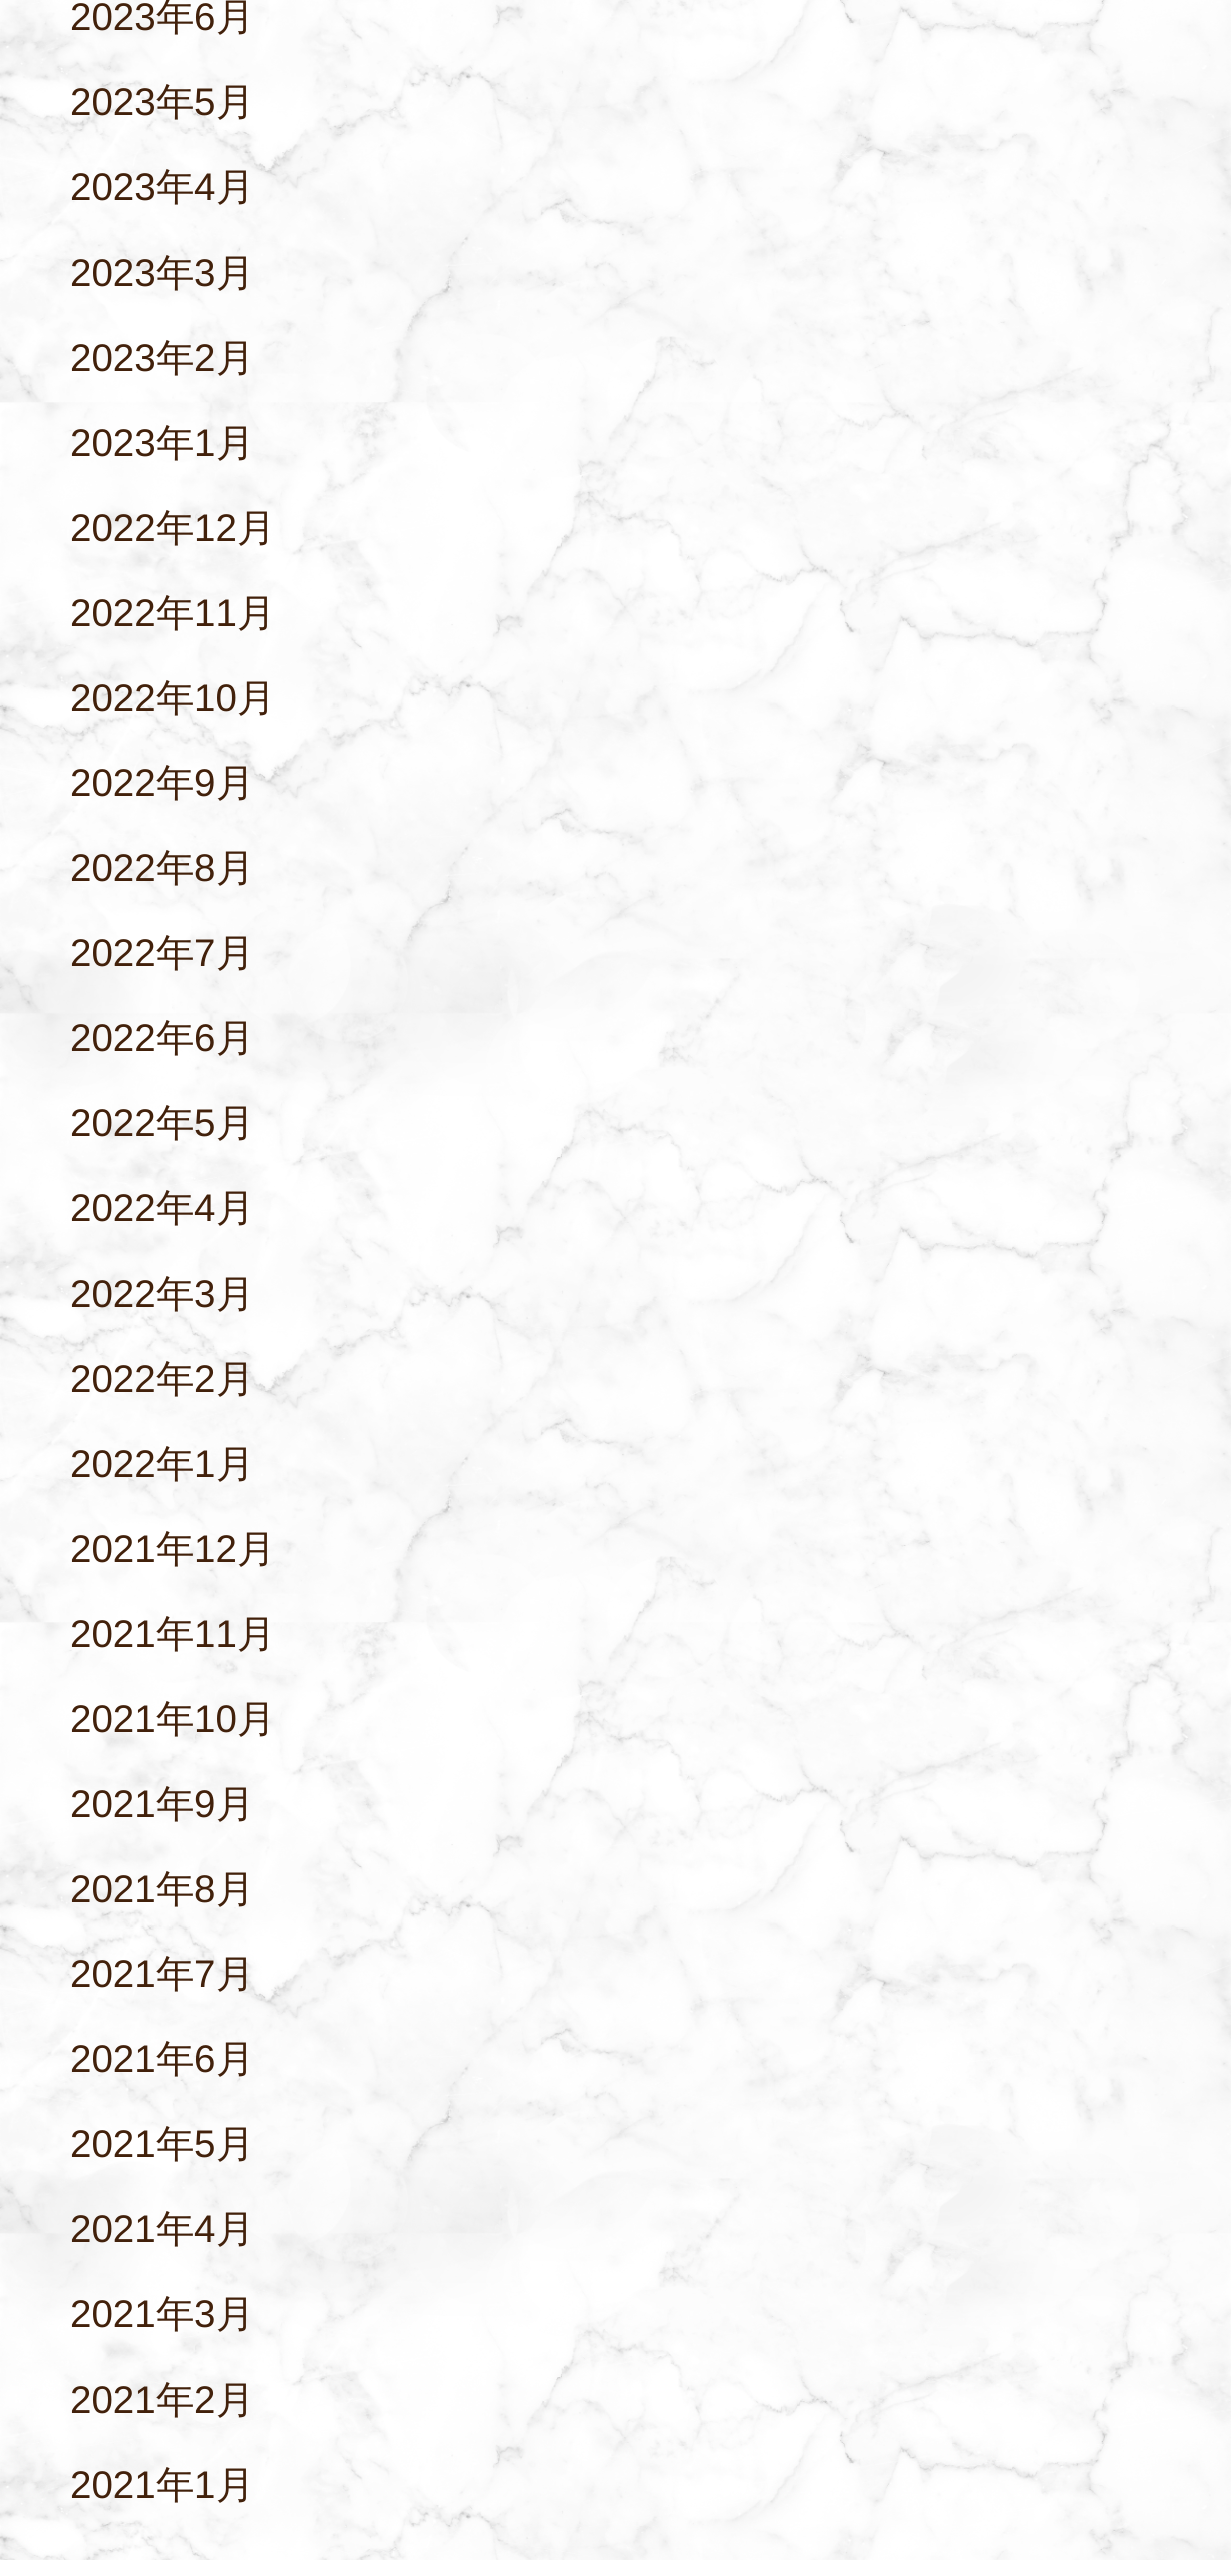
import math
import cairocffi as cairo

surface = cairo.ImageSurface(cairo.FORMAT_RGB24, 1231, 2560)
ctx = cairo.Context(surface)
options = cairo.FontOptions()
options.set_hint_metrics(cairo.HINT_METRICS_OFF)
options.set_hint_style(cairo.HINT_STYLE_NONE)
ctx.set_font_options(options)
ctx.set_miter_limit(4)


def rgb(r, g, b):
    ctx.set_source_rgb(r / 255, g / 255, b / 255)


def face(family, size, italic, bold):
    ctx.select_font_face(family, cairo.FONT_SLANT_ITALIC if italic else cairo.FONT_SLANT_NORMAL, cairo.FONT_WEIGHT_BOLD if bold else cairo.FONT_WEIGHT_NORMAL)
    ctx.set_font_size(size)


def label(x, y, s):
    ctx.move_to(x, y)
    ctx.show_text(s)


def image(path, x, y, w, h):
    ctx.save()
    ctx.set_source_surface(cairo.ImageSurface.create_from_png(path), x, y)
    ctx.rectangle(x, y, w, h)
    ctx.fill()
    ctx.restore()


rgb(255, 255, 255)
ctx.paint()
image('image0.png', 0, 0, 1231, 2560)
face('Liberation Sans', 38.5, 0, 0)
rgb(66, 33, 11)
label(70, 30, '2023')
face('WenQuanYi Zen Hei Medium', 38.5, 0, 0)
label(156, 30, '年')
face('Liberation Sans', 38.5, 0, 0)
label(194, 30, '6')
face('WenQuanYi Zen Hei Medium', 38.5, 0, 0)
label(216, 30, '月')
face('Liberation Sans', 38.5, 0, 0)
label(70, 115, '2023')
face('WenQuanYi Zen Hei Medium', 38.5, 0, 0)
label(156, 115, '年')
face('Liberation Sans', 38.5, 0, 0)
label(194, 115, '5')
face('WenQuanYi Zen Hei Medium', 38.5, 0, 0)
label(216, 115, '月')
face('Liberation Sans', 38.5, 0, 0)
label(70, 200, '2023')
face('WenQuanYi Zen Hei Medium', 38.5, 0, 0)
label(156, 200, '年')
face('Liberation Sans', 38.5, 0, 0)
label(194, 200, '4')
face('WenQuanYi Zen Hei Medium', 38.5, 0, 0)
label(216, 200, '月')
face('Liberation Sans', 38.5, 0, 0)
label(70, 286, '2023')
face('WenQuanYi Zen Hei Medium', 38.5, 0, 0)
label(156, 286, '年')
face('Liberation Sans', 38.5, 0, 0)
label(194, 286, '3')
face('WenQuanYi Zen Hei Medium', 38.5, 0, 0)
label(216, 286, '月')
face('Liberation Sans', 38.5, 0, 0)
label(70, 371, '2023')
face('WenQuanYi Zen Hei Medium', 38.5, 0, 0)
label(156, 371, '年')
face('Liberation Sans', 38.5, 0, 0)
label(194, 371, '2')
face('WenQuanYi Zen Hei Medium', 38.5, 0, 0)
label(216, 371, '月')
face('Liberation Sans', 38.5, 0, 0)
label(70, 456, '2023')
face('WenQuanYi Zen Hei Medium', 38.5, 0, 0)
label(156, 456, '年')
face('Liberation Sans', 38.5, 0, 0)
label(194, 456, '1')
face('WenQuanYi Zen Hei Medium', 38.5, 0, 0)
label(216, 456, '月')
face('Liberation Sans', 38.5, 0, 0)
label(70, 541, '2022')
face('WenQuanYi Zen Hei Medium', 38.5, 0, 0)
label(156, 541, '年')
face('Liberation Sans', 38.5, 0, 0)
label(194, 541, '12')
face('WenQuanYi Zen Hei Medium', 38.5, 0, 0)
label(237, 541, '月')
face('Liberation Sans', 38.5, 0, 0)
label(70, 626, '2022')
face('WenQuanYi Zen Hei Medium', 38.5, 0, 0)
label(156, 626, '年')
face('Liberation Sans', 38.5, 0, 0)
label(194, 626, '11')
face('WenQuanYi Zen Hei Medium', 38.5, 0, 0)
label(237, 626, '月')
face('Liberation Sans', 38.5, 0, 0)
label(70, 711, '2022')
face('WenQuanYi Zen Hei Medium', 38.5, 0, 0)
label(156, 711, '年')
face('Liberation Sans', 38.5, 0, 0)
label(194, 711, '10')
face('WenQuanYi Zen Hei Medium', 38.5, 0, 0)
label(237, 711, '月')
face('Liberation Sans', 38.5, 0, 0)
label(70, 796, '2022')
face('WenQuanYi Zen Hei Medium', 38.5, 0, 0)
label(156, 796, '年')
face('Liberation Sans', 38.5, 0, 0)
label(194, 796, '9')
face('WenQuanYi Zen Hei Medium', 38.5, 0, 0)
label(216, 796, '月')
face('Liberation Sans', 38.5, 0, 0)
label(70, 881, '2022')
face('WenQuanYi Zen Hei Medium', 38.5, 0, 0)
label(156, 881, '年')
face('Liberation Sans', 38.5, 0, 0)
label(194, 881, '8')
face('WenQuanYi Zen Hei Medium', 38.5, 0, 0)
label(216, 881, '月')
face('Liberation Sans', 38.5, 0, 0)
label(70, 966, '2022')
face('WenQuanYi Zen Hei Medium', 38.5, 0, 0)
label(156, 966, '年')
face('Liberation Sans', 38.5, 0, 0)
label(194, 966, '7')
face('WenQuanYi Zen Hei Medium', 38.5, 0, 0)
label(216, 966, '月')
face('Liberation Sans', 38.5, 0, 0)
label(70, 1051, '2022')
face('WenQuanYi Zen Hei Medium', 38.5, 0, 0)
label(156, 1051, '年')
face('Liberation Sans', 38.5, 0, 0)
label(194, 1051, '6')
face('WenQuanYi Zen Hei Medium', 38.5, 0, 0)
label(216, 1051, '月')
face('Liberation Sans', 38.5, 0, 0)
label(70, 1136, '2022')
face('WenQuanYi Zen Hei Medium', 38.5, 0, 0)
label(156, 1136, '年')
face('Liberation Sans', 38.5, 0, 0)
label(194, 1136, '5')
face('WenQuanYi Zen Hei Medium', 38.5, 0, 0)
label(216, 1136, '月')
face('Liberation Sans', 38.5, 0, 0)
label(70, 1221, '2022')
face('WenQuanYi Zen Hei Medium', 38.5, 0, 0)
label(156, 1221, '年')
face('Liberation Sans', 38.5, 0, 0)
label(194, 1221, '4')
face('WenQuanYi Zen Hei Medium', 38.5, 0, 0)
label(216, 1221, '月')
face('Liberation Sans', 38.5, 0, 0)
label(70, 1307, '2022')
face('WenQuanYi Zen Hei Medium', 38.5, 0, 0)
label(156, 1307, '年')
face('Liberation Sans', 38.5, 0, 0)
label(194, 1307, '3')
face('WenQuanYi Zen Hei Medium', 38.5, 0, 0)
label(216, 1307, '月')
face('Liberation Sans', 38.5, 0, 0)
label(70, 1392, '2022')
face('WenQuanYi Zen Hei Medium', 38.5, 0, 0)
label(156, 1392, '年')
face('Liberation Sans', 38.5, 0, 0)
label(194, 1392, '2')
face('WenQuanYi Zen Hei Medium', 38.5, 0, 0)
label(216, 1392, '月')
face('Liberation Sans', 38.5, 0, 0)
label(70, 1477, '2022')
face('WenQuanYi Zen Hei Medium', 38.5, 0, 0)
label(156, 1477, '年')
face('Liberation Sans', 38.5, 0, 0)
label(194, 1477, '1')
face('WenQuanYi Zen Hei Medium', 38.5, 0, 0)
label(216, 1477, '月')
face('Liberation Sans', 38.5, 0, 0)
label(70, 1562, '2021')
face('WenQuanYi Zen Hei Medium', 38.5, 0, 0)
label(156, 1562, '年')
face('Liberation Sans', 38.5, 0, 0)
label(194, 1562, '12')
face('WenQuanYi Zen Hei Medium', 38.5, 0, 0)
label(237, 1562, '月')
face('Liberation Sans', 38.5, 0, 0)
label(70, 1647, '2021')
face('WenQuanYi Zen Hei Medium', 38.5, 0, 0)
label(156, 1647, '年')
face('Liberation Sans', 38.5, 0, 0)
label(194, 1647, '11')
face('WenQuanYi Zen Hei Medium', 38.5, 0, 0)
label(237, 1647, '月')
face('Liberation Sans', 38.5, 0, 0)
label(70, 1732, '2021')
face('WenQuanYi Zen Hei Medium', 38.5, 0, 0)
label(156, 1732, '年')
face('Liberation Sans', 38.5, 0, 0)
label(194, 1732, '10')
face('WenQuanYi Zen Hei Medium', 38.5, 0, 0)
label(237, 1732, '月')
face('Liberation Sans', 38.5, 0, 0)
label(70, 1817, '2021')
face('WenQuanYi Zen Hei Medium', 38.5, 0, 0)
label(156, 1817, '年')
face('Liberation Sans', 38.5, 0, 0)
label(194, 1817, '9')
face('WenQuanYi Zen Hei Medium', 38.5, 0, 0)
label(216, 1817, '月')
face('Liberation Sans', 38.5, 0, 0)
label(70, 1902, '2021')
face('WenQuanYi Zen Hei Medium', 38.5, 0, 0)
label(156, 1902, '年')
face('Liberation Sans', 38.5, 0, 0)
label(194, 1902, '8')
face('WenQuanYi Zen Hei Medium', 38.5, 0, 0)
label(216, 1902, '月')
face('Liberation Sans', 38.5, 0, 0)
label(70, 1987, '2021')
face('WenQuanYi Zen Hei Medium', 38.5, 0, 0)
label(156, 1987, '年')
face('Liberation Sans', 38.5, 0, 0)
label(194, 1987, '7')
face('WenQuanYi Zen Hei Medium', 38.5, 0, 0)
label(216, 1987, '月')
face('Liberation Sans', 38.5, 0, 0)
label(70, 2072, '2021')
face('WenQuanYi Zen Hei Medium', 38.5, 0, 0)
label(156, 2072, '年')
face('Liberation Sans', 38.5, 0, 0)
label(194, 2072, '6')
face('WenQuanYi Zen Hei Medium', 38.5, 0, 0)
label(216, 2072, '月')
face('Liberation Sans', 38.5, 0, 0)
label(70, 2157, '2021')
face('WenQuanYi Zen Hei Medium', 38.5, 0, 0)
label(156, 2157, '年')
face('Liberation Sans', 38.5, 0, 0)
label(194, 2157, '5')
face('WenQuanYi Zen Hei Medium', 38.5, 0, 0)
label(216, 2157, '月')
face('Liberation Sans', 38.5, 0, 0)
label(70, 2242, '2021')
face('WenQuanYi Zen Hei Medium', 38.5, 0, 0)
label(156, 2242, '年')
face('Liberation Sans', 38.5, 0, 0)
label(194, 2242, '4')
face('WenQuanYi Zen Hei Medium', 38.5, 0, 0)
label(216, 2242, '月')
face('Liberation Sans', 38.5, 0, 0)
label(70, 2327, '2021')
face('WenQuanYi Zen Hei Medium', 38.5, 0, 0)
label(156, 2327, '年')
face('Liberation Sans', 38.5, 0, 0)
label(194, 2327, '3')
face('WenQuanYi Zen Hei Medium', 38.5, 0, 0)
label(216, 2327, '月')
face('Liberation Sans', 38.5, 0, 0)
label(70, 2413, '2021')
face('WenQuanYi Zen Hei Medium', 38.5, 0, 0)
label(156, 2413, '年')
face('Liberation Sans', 38.5, 0, 0)
label(194, 2413, '2')
face('WenQuanYi Zen Hei Medium', 38.5, 0, 0)
label(216, 2413, '月')
face('Liberation Sans', 38.5, 0, 0)
label(70, 2498, '2021')
face('WenQuanYi Zen Hei Medium', 38.5, 0, 0)
label(156, 2498, '年')
face('Liberation Sans', 38.5, 0, 0)
label(194, 2498, '1')
face('WenQuanYi Zen Hei Medium', 38.5, 0, 0)
label(216, 2498, '月')
surface.write_to_png('render.png')
